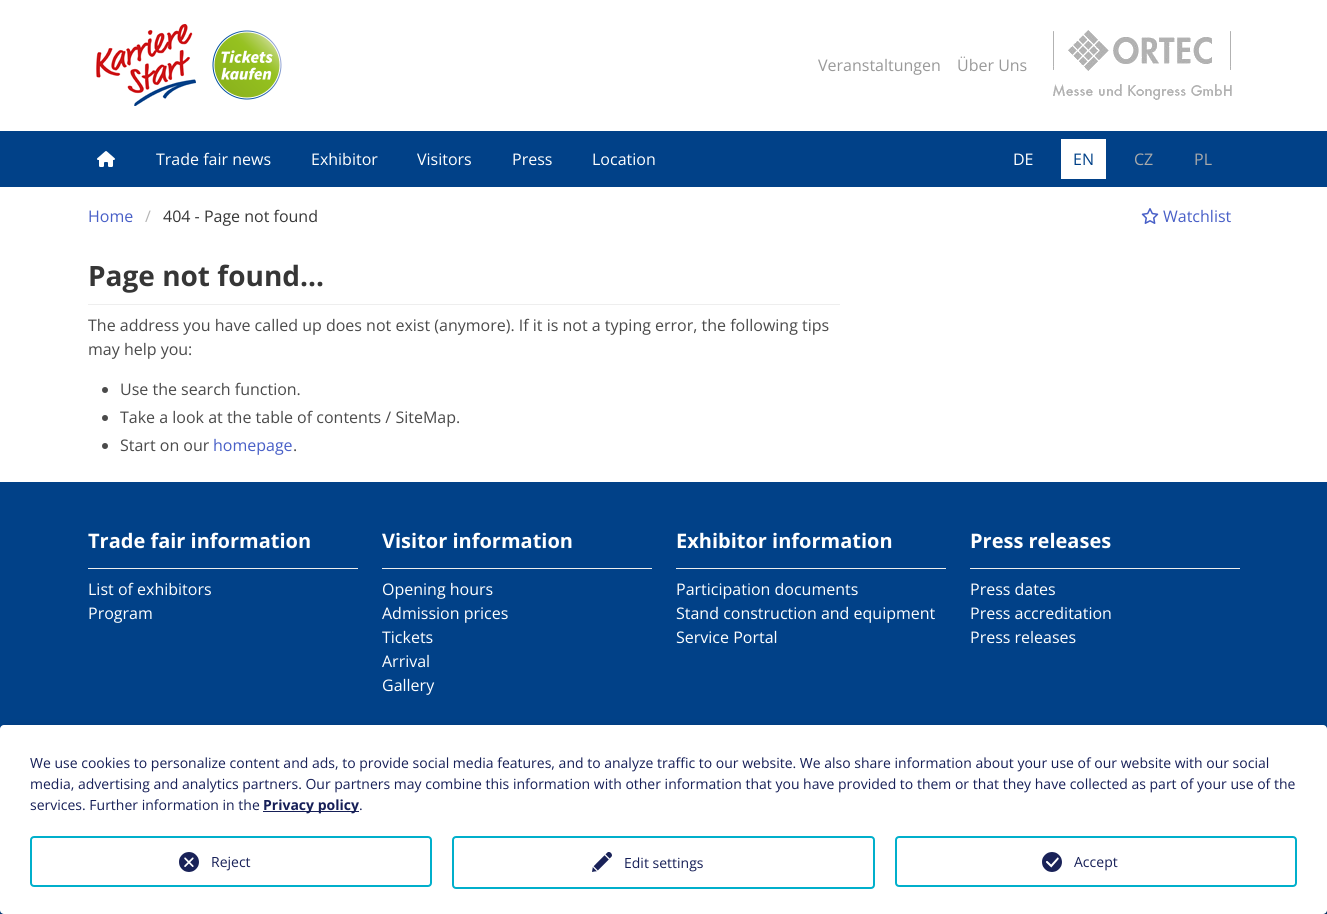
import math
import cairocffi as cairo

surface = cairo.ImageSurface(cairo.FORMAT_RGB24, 1327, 914)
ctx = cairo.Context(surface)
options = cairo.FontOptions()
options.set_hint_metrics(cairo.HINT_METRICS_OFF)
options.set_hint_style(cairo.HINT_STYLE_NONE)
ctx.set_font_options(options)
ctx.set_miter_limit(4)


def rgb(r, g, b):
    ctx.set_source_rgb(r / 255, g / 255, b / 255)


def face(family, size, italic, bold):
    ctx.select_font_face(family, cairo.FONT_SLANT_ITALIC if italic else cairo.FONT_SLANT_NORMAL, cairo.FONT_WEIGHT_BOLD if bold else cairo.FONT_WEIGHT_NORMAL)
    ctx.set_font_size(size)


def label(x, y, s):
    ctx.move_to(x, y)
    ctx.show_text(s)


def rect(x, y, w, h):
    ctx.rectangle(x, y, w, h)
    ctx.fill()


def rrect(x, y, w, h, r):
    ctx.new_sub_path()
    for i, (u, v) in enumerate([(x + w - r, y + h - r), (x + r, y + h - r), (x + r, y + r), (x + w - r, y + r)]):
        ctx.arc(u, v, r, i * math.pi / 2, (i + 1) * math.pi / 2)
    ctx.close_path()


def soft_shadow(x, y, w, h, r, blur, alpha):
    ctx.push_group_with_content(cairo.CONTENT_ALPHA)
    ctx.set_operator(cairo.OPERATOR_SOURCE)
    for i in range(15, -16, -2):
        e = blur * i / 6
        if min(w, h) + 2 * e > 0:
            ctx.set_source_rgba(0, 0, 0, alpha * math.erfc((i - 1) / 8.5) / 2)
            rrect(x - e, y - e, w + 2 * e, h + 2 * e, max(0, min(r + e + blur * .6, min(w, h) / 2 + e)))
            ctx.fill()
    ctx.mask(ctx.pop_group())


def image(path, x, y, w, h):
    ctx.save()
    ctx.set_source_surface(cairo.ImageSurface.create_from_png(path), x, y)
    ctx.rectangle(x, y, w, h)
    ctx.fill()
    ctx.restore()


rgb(255, 255, 255)
ctx.paint()
image('image0.png', 96, 24, 100, 82)
image('image1.png', 212, 30, 70, 70)
face('Open Sans', 16, 0, 0)
rgb(153, 153, 153)
label(818, 71, 'Veranstaltungen')
label(957, 71, 'Über Uns')
image('image2.png', 1053, 30, 179, 70)
rgb(1, 65, 136)
rect(0, 131, 1327, 56)
image('image3.png', 97, 151, 18, 16)
rgb(255, 255, 255)
label(156, 165, 'Trade fair news')
label(311, 165, 'Exhibitor')
label(417, 165, 'Visitors')
label(512, 165, 'Press')
label(592, 165, 'Location')
label(1013, 165, 'DE')
rect(1061, 139, 45, 40)
rgb(1, 65, 136)
label(1073, 165, 'EN')
rgb(170, 170, 170)
label(1134, 165, 'CZ')
label(1194, 165, 'PL')
rgb(72, 95, 199)
label(88, 222, 'Home')
rgb(181, 181, 181)
label(145, 222, '/')
rgb(54, 54, 54)
label(163, 222, '404 - Page not found')
image('image4.png', 1141, 208, 18, 16)
rgb(72, 95, 199)
label(1163, 222, 'Watchlist')
rgb(238, 238, 238)
rect(88, 304, 752, 1)
face('Open Sans', 28, 0, 1)
rgb(54, 54, 54)
label(88, 286, 'Page not found...')
face('Open Sans', 16, 0, 0)
rgb(74, 74, 74)
label(88, 331, 'The address you have called up does not exist (anymore). If it is not a typing error, the following tips')
label(88, 355, 'may help you:')
ctx.new_path()
ctx.arc(105, 390, 3, 0, 2 * math.pi)
ctx.fill()
label(120, 395, 'Use the search function.')
ctx.new_path()
ctx.arc(105, 418, 3, 0, 2 * math.pi)
ctx.fill()
label(120, 423, 'Take a look at the table of contents / SiteMap.')
ctx.new_path()
ctx.arc(105, 446, 3, 0, 2 * math.pi)
ctx.fill()
label(120, 451, 'Start on our')
rgb(72, 95, 199)
label(213, 451, 'homepage')
rgb(74, 74, 74)
label(293, 451, '.')
rgb(1, 65, 136)
rect(0, 482, 1327, 432)
rgb(238, 238, 238)
rect(88, 568, 270, 1)
face('Open Sans', 20, 0, 1)
rgb(255, 255, 255)
label(88, 548, 'Trade fair information')
face('Open Sans', 16, 0, 0)
label(88, 595, 'List of exhibitors')
label(88, 619, 'Program')
rgb(238, 238, 238)
rect(382, 568, 270, 1)
face('Open Sans', 20, 0, 1)
rgb(255, 255, 255)
label(382, 548, 'Visitor information')
face('Open Sans', 16, 0, 0)
label(382, 595, 'Opening hours')
label(382, 619, 'Admission prices')
label(382, 643, 'Tickets')
label(382, 667, 'Arrival')
label(382, 691, 'Gallery')
rgb(238, 238, 238)
rect(676, 568, 270, 1)
face('Open Sans', 20, 0, 1)
rgb(255, 255, 255)
label(676, 548, 'Exhibitor information')
face('Open Sans', 16, 0, 0)
label(676, 595, 'Participation documents')
label(676, 619, 'Stand construction and equipment')
label(676, 643, 'Service Portal')
rgb(238, 238, 238)
rect(970, 568, 270, 1)
face('Open Sans', 20, 0, 1)
rgb(255, 255, 255)
label(970, 548, 'Press releases')
face('Open Sans', 16, 0, 0)
label(970, 595, 'Press dates')
label(970, 619, 'Press accreditation')
label(970, 643, 'Press releases')
rgb(0, 0, 0)
soft_shadow(5, 730, 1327, 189, 4, 5, 0.19)
soft_shadow(0, 729, 1327, 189, 4, 3, 0.2)
rgb(255, 255, 255)
rrect(0, 725, 1327, 189, 4)
ctx.fill()
face('Open Sans', 14, 0, 0)
rgb(22, 31, 87)
label(30, 768, 'We use cookies to personalize content and ads, to provide social media features, and to analyze traffic to our website. We also share information about your use of our website with our social')
label(30, 789, 'media, advertising and analytics partners. Our partners may combine this information with other information that you have provided to them or that they have collected as part of your use of the')
label(30, 810, 'services. Further information in the')
rect(263, 811, 96, 1)
face('Open Sans', 14, 0, 1)
label(263, 810, 'Privacy policy')
face('Open Sans', 14, 0, 0)
label(359, 810, '.')
rrect(31, 837, 400, 49, 3)
rgb(0, 175, 203)
ctx.stroke()
image('image5.png', 179, 852, 20, 20)
rgb(22, 31, 87)
label(211, 867, 'Reject')
rrect(896, 837, 400, 49, 3)
rgb(0, 175, 203)
ctx.stroke()
image('image6.png', 1042, 852, 20, 20)
rgb(22, 31, 87)
label(1074, 867, 'Accept')
rrect(453, 837, 421, 51, 3)
rgb(0, 175, 203)
ctx.stroke()
image('image7.png', 592, 852, 20, 20)
rgb(22, 31, 87)
label(624, 868, 'Edit settings')
surface.write_to_png('render.png')
